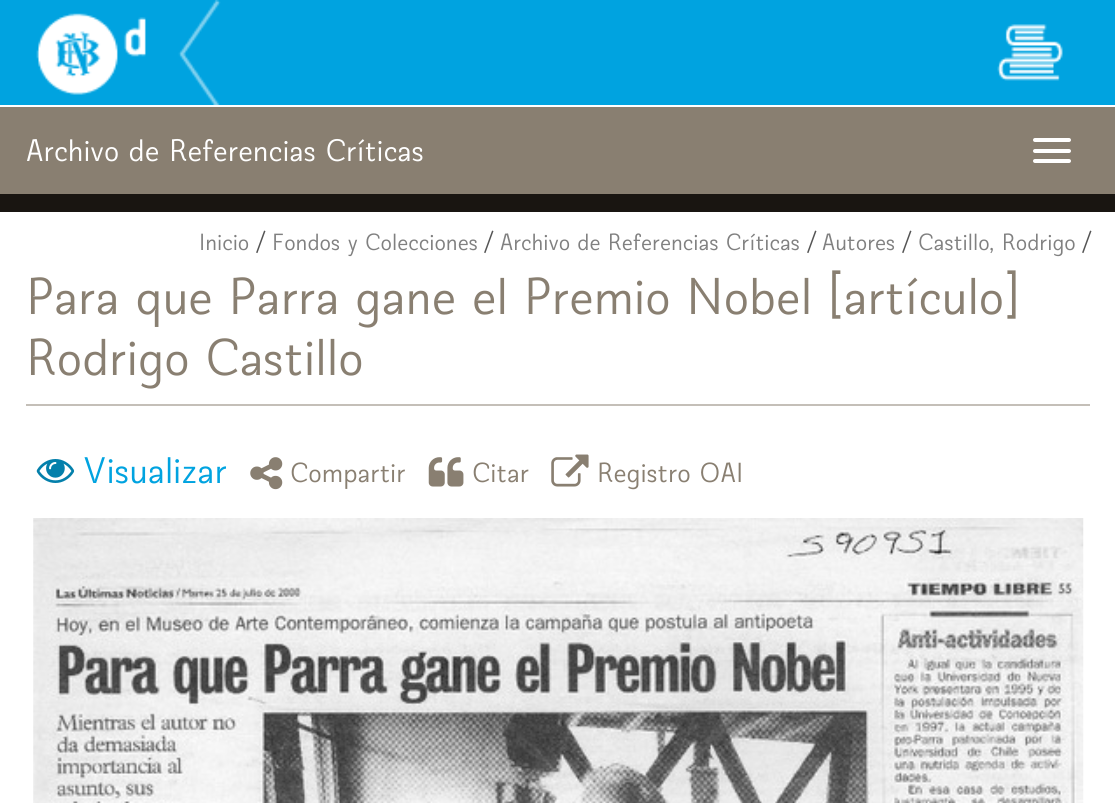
import math
import cairocffi as cairo

surface = cairo.ImageSurface(cairo.FORMAT_RGB24, 1115, 803)
ctx = cairo.Context(surface)
options = cairo.FontOptions()
options.set_hint_metrics(cairo.HINT_METRICS_OFF)
options.set_hint_style(cairo.HINT_STYLE_NONE)
ctx.set_font_options(options)
ctx.set_miter_limit(4)


def rgb(r, g, b):
    ctx.set_source_rgb(r / 255, g / 255, b / 255)


def face(family, size, italic, bold):
    ctx.select_font_face(family, cairo.FONT_SLANT_ITALIC if italic else cairo.FONT_SLANT_NORMAL, cairo.FONT_WEIGHT_BOLD if bold else cairo.FONT_WEIGHT_NORMAL)
    ctx.set_font_size(size)


def label(x, y, s):
    ctx.move_to(x, y)
    ctx.show_text(s)


def rect(x, y, w, h):
    ctx.rectangle(x, y, w, h)
    ctx.fill()


def rrect(x, y, w, h, r):
    ctx.new_sub_path()
    for i, (u, v) in enumerate([(x + w - r, y + h - r), (x + r, y + h - r), (x + r, y + r), (x + w - r, y + r)]):
        ctx.arc(u, v, r, i * math.pi / 2, (i + 1) * math.pi / 2)
    ctx.close_path()


def image(path, x, y, w, h):
    ctx.save()
    ctx.set_source_surface(cairo.ImageSurface.create_from_png(path), x, y)
    ctx.rectangle(x, y, w, h)
    ctx.fill()
    ctx.restore()


rgb(255, 255, 255)
ctx.paint()
rgb(0, 163, 224)
rect(0, 0, 1115, 105)
image('image0.png', 36, 0, 185, 105)
image('image1.png', 997, 24, 66, 57)
rgb(137, 127, 113)
rect(0, 107, 1115, 87)
rgb(25, 21, 17)
rect(0, 194, 1115, 18)
face('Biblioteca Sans', 31.5, 0, 0)
rgb(255, 255, 255)
label(26, 161, 'Archivo de Referencias Críticas')
rrect(1033, 138, 38, 4, 2)
ctx.fill()
rrect(1033, 149, 38, 4, 2)
ctx.fill()
rrect(1033, 159, 38, 4, 2)
ctx.fill()
face('Biblioteca Sans', 23.75, 0, 0)
rgb(128, 128, 128)
label(199, 250, 'Inicio')
rgb(85, 85, 85)
label(257, 250, '/')
rgb(128, 128, 128)
label(272, 250, 'Fondos y Colecciones')
rgb(85, 85, 85)
label(485, 250, '/')
rgb(128, 128, 128)
label(500, 250, 'Archivo de Referencias Críticas')
rgb(85, 85, 85)
label(808, 250, '/')
rgb(128, 128, 128)
label(822, 250, 'Autores')
rgb(85, 85, 85)
label(903, 250, '/')
rgb(128, 128, 128)
label(918, 250, 'Castillo, Rodrigo')
rgb(85, 85, 85)
label(1083, 250, '/')
rgb(196, 191, 184)
rect(26, 404, 1064, 2)
face('Biblioteca Sans', 52.5, 0, 0)
rgb(137, 127, 113)
label(26, 314, 'Para que Parra gane el Premio Nobel [artículo]')
label(26, 375, 'Rodrigo Castillo')
image('image2.png', 36, 459, 39, 24)
face('Biblioteca Sans', 37.5, 0, 0)
rgb(0, 163, 224)
label(83, 483, 'Visualizar')
image('image3.png', 250, 457, 33, 33)
face('Biblioteca Sans', 28, 0, 0)
rgb(137, 127, 113)
label(290, 482, 'Compartir')
image('image4.png', 428, 457, 36, 30)
label(472, 482, 'Citar')
image('image5.png', 551, 454, 38, 33)
label(597, 482, 'Registro OAI')
image('image6.png', 33, 518, 1051, 285)
surface.write_to_png('render.png')
